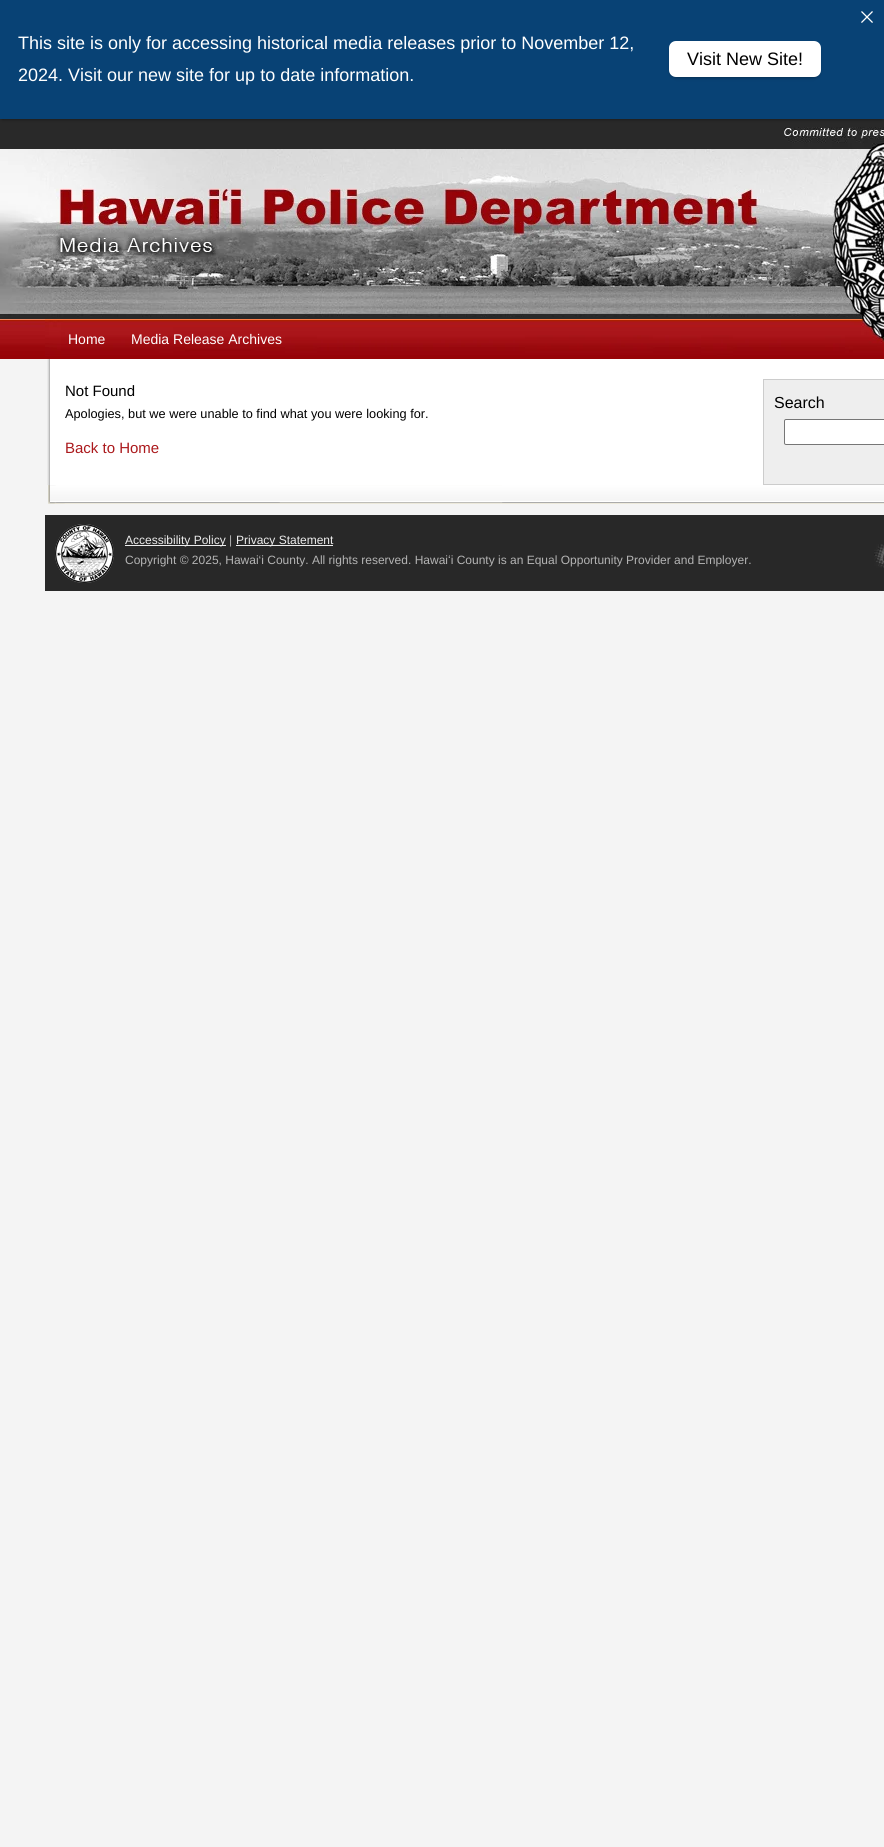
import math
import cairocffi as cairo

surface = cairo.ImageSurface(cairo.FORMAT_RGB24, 884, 1847)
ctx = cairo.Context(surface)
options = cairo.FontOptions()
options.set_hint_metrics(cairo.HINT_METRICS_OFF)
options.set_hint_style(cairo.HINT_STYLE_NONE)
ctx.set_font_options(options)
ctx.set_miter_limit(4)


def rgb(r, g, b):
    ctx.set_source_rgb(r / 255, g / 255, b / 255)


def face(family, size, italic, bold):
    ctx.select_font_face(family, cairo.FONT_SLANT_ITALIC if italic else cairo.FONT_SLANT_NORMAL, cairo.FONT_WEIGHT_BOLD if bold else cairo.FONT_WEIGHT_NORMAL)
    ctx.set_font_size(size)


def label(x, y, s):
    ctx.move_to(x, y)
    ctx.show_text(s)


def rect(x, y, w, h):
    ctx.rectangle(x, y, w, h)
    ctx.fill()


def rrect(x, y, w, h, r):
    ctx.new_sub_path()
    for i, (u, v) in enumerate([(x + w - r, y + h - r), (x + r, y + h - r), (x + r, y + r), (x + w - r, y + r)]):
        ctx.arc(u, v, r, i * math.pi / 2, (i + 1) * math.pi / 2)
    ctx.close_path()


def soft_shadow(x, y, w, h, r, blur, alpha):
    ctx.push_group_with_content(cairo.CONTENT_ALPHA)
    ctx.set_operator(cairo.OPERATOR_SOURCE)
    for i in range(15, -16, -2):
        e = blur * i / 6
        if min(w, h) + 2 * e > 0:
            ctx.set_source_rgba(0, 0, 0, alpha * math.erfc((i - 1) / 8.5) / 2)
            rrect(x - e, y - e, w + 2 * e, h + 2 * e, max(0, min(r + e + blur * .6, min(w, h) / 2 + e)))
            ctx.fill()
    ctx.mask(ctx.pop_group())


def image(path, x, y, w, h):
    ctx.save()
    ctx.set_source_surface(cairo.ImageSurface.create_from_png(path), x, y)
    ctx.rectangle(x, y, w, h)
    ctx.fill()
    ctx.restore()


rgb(244, 244, 244)
ctx.paint()
rgb(41, 41, 41)
rect(0, 119, 884, 30)
rgb(0, 0, 0)
soft_shadow(2, 4, 880, 115, 0, 2, 0.5)
rgb(8, 66, 117)
rect(0, 0, 884, 119)
image('image0.png', 861, 11, 12, 12)
face('Liberation Sans', 18, 0, 0)
rgb(255, 255, 255)
label(18, 49, 'This site is only for accessing historical media releases prior to November 12,')
label(18, 81, '2024. Visit our new site for up to date information.')
rgb(0, 0, 0)
soft_shadow(671, 45, 148, 32, 5, 2, 0.5)
rgb(255, 255, 255)
rrect(669, 41, 152, 36, 7)
ctx.fill()
rgb(0, 0, 0)
label(687, 65, 'Visit New Site!')
image('image1.png', 0, 319, 884, 40)
image('image2.png', 784, 127, 100, 22)
image('image3.png', 0, 149, 884, 170)
image('image4.png', 45, 319, 839, 37)
face('Liberation Sans', 14, 0, 0)
rgb(255, 255, 255)
label(68, 344, 'Home')
label(131, 344, 'Media Release Archives')
image('image5.png', 47, 359, 837, 126)
face('Liberation Sans', 15, 0, 0)
rgb(0, 0, 0)
label(65, 396, 'Not Found')
face('Liberation Sans', 12.75, 0, 0)
label(65, 418, 'Apologies, but we were unable to find what you were looking for.')
face('Liberation Sans', 15, 0, 0)
rgb(171, 25, 28)
label(65, 453, 'Back to Home')
rgb(238, 238, 238)
ctx.rectangle(763.5, 379.5, 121, 105)
ctx.fill_preserve()
rgb(204, 204, 204)
ctx.set_line_width(1)
ctx.stroke()
face('Liberation Sans', 16, 0, 0)
rgb(0, 0, 0)
label(774, 408, 'Search')
rgb(255, 255, 255)
rrect(784.5, 419.5, 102, 25, 1.5)
ctx.fill_preserve()
rgb(118, 118, 118)
ctx.stroke()
rgb(40, 40, 40)
rect(45, 515, 839, 76)
image('image6.png', 45, 485, 839, 30)
image('image7.png', 55, 524, 59, 59)
rgb(237, 237, 237)
rect(125, 545, 101, 1)
face('Liberation Sans', 12, 0, 0)
label(125, 544, 'Accessibility Policy')
rgb(180, 180, 180)
label(229, 544, '|')
rgb(237, 237, 237)
rect(236, 545, 97, 1)
label(236, 544, 'Privacy Statement')
rgb(180, 180, 180)
label(125, 564, 'Copyright © 2025, Hawai‘i County. All rights reserved. Hawaiʻi County is an Equal Opportunity Provider and Employer.')
image('image8.png', 874, 544, 10, 24)
surface.write_to_png('render.png')
